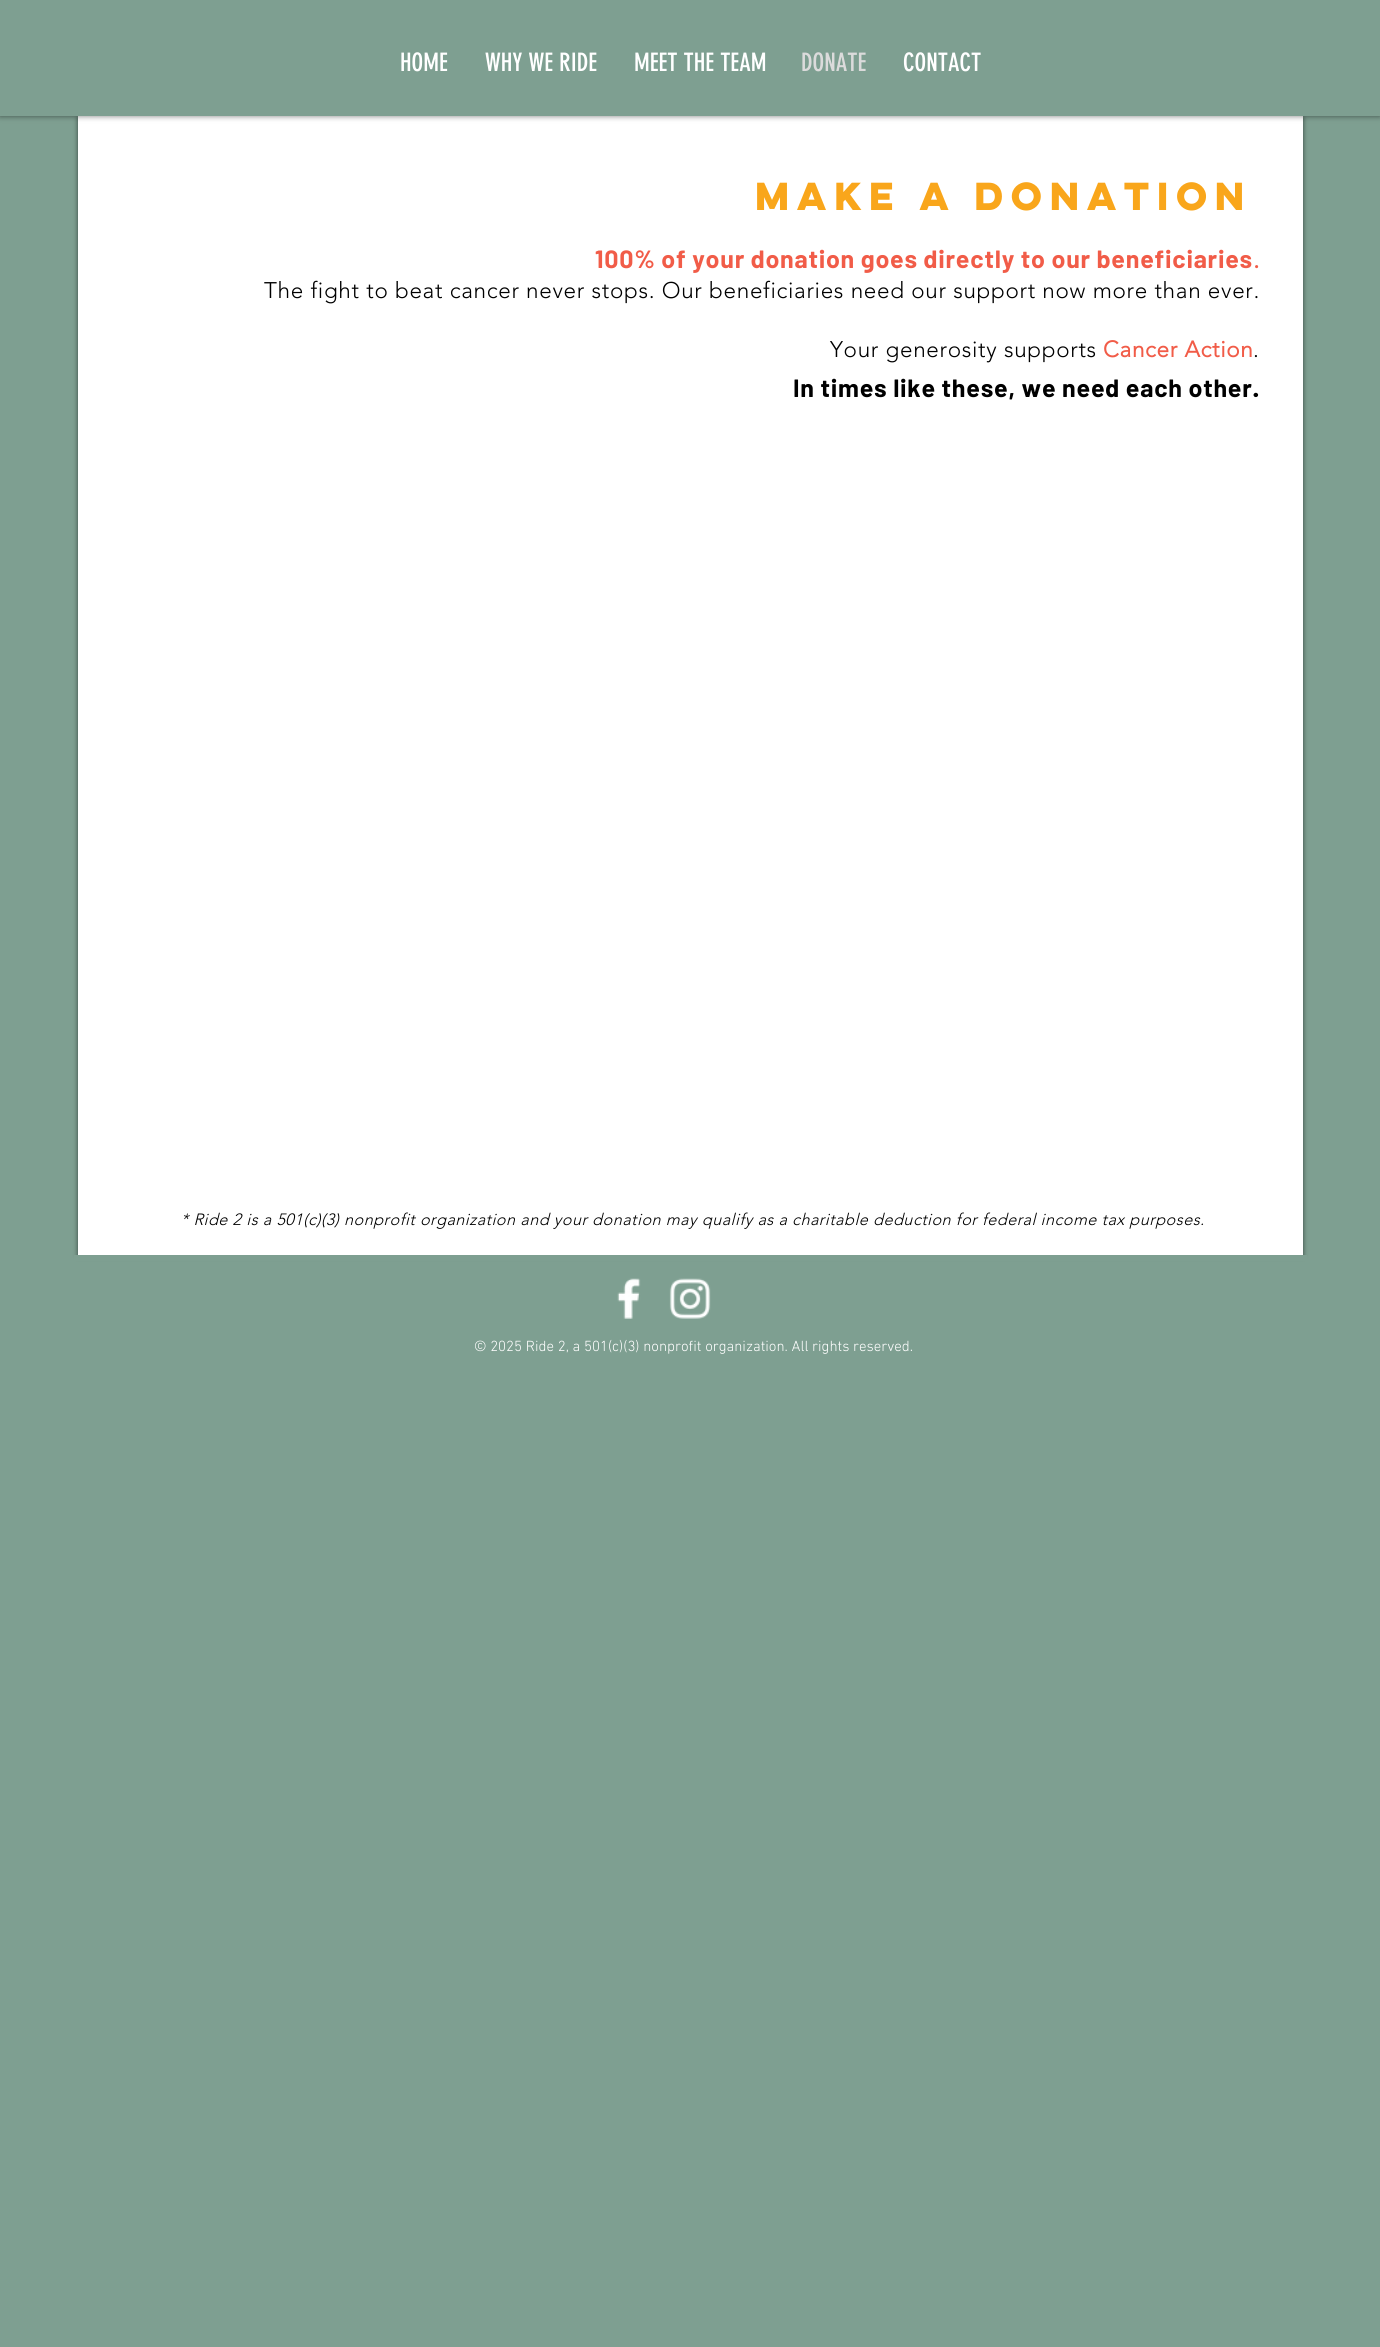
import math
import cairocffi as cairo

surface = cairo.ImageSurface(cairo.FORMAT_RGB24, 1380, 2347)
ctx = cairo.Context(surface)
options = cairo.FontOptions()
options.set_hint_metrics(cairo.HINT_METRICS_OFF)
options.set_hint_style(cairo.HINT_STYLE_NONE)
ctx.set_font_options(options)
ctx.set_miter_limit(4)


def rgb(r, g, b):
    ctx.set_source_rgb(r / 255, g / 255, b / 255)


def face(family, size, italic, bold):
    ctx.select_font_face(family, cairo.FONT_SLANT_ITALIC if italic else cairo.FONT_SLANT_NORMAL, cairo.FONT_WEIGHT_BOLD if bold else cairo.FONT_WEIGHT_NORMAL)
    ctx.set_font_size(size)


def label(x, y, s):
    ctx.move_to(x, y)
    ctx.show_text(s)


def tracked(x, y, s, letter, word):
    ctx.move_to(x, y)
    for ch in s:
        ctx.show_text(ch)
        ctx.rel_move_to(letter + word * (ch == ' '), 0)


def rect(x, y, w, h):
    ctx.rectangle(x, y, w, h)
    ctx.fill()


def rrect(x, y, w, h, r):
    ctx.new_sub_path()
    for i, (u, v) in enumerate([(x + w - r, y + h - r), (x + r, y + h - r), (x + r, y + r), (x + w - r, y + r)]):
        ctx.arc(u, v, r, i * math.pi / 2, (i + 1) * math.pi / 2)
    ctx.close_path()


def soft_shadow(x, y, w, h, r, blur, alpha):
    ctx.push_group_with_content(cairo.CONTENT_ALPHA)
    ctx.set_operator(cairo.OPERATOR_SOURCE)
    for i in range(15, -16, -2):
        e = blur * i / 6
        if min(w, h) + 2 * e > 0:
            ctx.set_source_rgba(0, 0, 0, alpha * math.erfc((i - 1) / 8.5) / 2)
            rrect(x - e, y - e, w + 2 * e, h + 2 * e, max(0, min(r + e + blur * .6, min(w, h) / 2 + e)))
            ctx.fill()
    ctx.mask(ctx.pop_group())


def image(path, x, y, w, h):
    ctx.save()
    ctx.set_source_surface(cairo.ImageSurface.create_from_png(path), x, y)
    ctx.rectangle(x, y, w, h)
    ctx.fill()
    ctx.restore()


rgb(126, 159, 145)
ctx.paint()
rgb(0, 0, 0)
soft_shadow(78, 118, 1225, 1138, 0, 2.5, 0.6)
rgb(255, 255, 255)
rect(78, 116, 1225, 1139)
rgb(0, 0, 0)
soft_shadow(0, 0, 1380, 116, 0, 3, 0.5)
rgb(126, 159, 145)
rect(0, 0, 1380, 116)
face('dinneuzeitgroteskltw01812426', 25, 0, 0)
rgb(255, 255, 255)
label(400, 71, 'HOME')
label(485, 71, 'WHY WE RIDE')
label(634, 71, 'MEET THE TEAM')
rgb(219, 219, 219)
label(801, 71, 'DONATE')
rgb(255, 255, 255)
label(903, 71, 'CONTACT')
face('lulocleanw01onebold', 35, 0, 1)
rgb(249, 166, 27)
label(755, 210, 'make a donation')
face('Barlow', 25, 0, 1)
rgb(241, 92, 72)
tracked(595, 268, '100% of your donation goes directly to our beneficiaries', 0.75, 0)
face('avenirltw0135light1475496', 25, 0, 1)
tracked(1253, 268, '.', 0.75, 0)
face('avenirltw0135light1475496 Light', 22.5, 0, 0)
rgb(0, 0, 0)
tracked(264, 298, 'The fight to beat cancer never stops. Our beneficiaries need our support now more than ever.', 0.68, 0)
tracked(830, 357, 'Your generosity supports', 0.68, 0)
face('avenirltw0135light1475496', 22.5, 0, 1)
rgb(241, 92, 72)
tracked(1103, 357, 'Cancer Action', 0.68, 0)
face('avenirltw0135light1475496 Light', 22.5, 0, 0)
rgb(0, 0, 0)
tracked(1253, 357, '.', 0.68, 0)
face('Barlow', 25, 0, 1)
tracked(793, 397, 'In times like these, we need each other.', 0.75, 0)
face('avenirltw0135light1475496 Light', 16.25, 1, 0)
tracked(181, 1225, '* Ride 2 is a 501(c)(3) nonprofit organization and your donation may qualify as a charitable deduction for federal income tax purposes.', 0.49, 0)
rgb(126, 159, 145)
rect(74, 1255, 1233, 6)
image('image0.png', 617, 1278, 24, 41)
image('image1.png', 669, 1278, 42, 41)
face('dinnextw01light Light', 15, 0, 0)
rgb(255, 255, 255)
label(474, 1351, '© 2025 Ride 2, a 501(c)(3) nonprofit organization. All rights reserved.')
surface.write_to_png('render.png')
